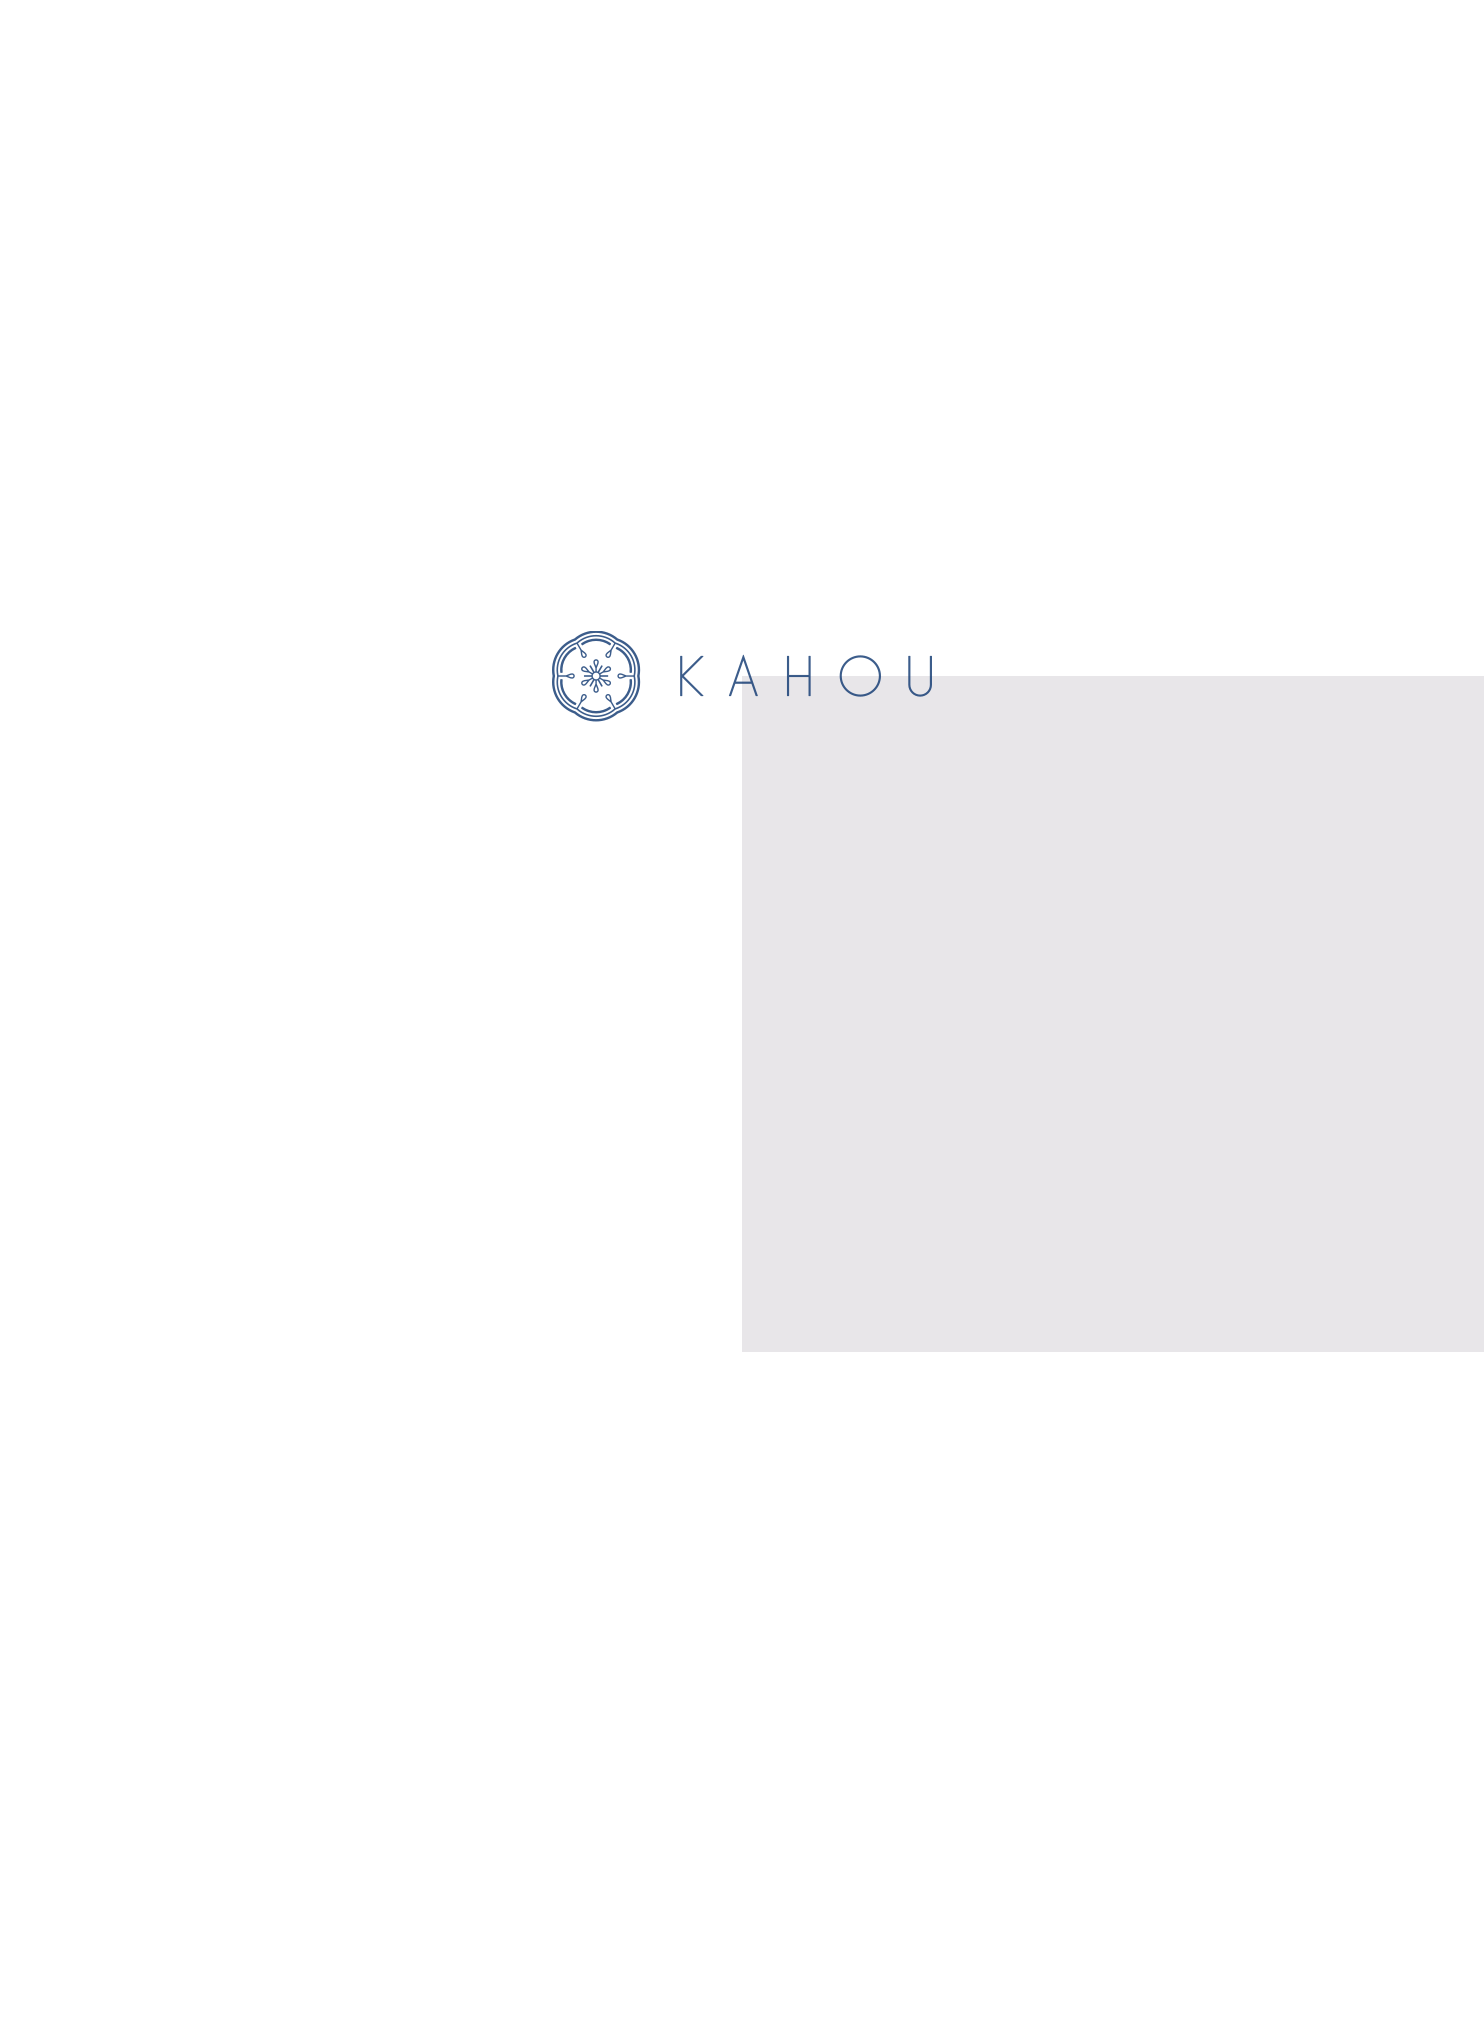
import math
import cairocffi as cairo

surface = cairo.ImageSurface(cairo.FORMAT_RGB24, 1484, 2028)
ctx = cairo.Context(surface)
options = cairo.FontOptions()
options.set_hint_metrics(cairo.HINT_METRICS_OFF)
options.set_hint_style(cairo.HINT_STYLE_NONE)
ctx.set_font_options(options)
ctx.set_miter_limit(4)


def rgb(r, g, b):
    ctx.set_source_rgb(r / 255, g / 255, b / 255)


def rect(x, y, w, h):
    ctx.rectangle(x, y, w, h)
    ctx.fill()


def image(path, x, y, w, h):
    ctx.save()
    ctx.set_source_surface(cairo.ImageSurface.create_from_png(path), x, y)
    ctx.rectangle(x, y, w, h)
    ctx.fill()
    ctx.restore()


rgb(255, 255, 255)
ctx.paint()
rgb(232, 230, 233)
rect(742, 676, 742, 676)
image('image0.png', 552, 631, 380, 91)
surface.write_to_png('render.png')
